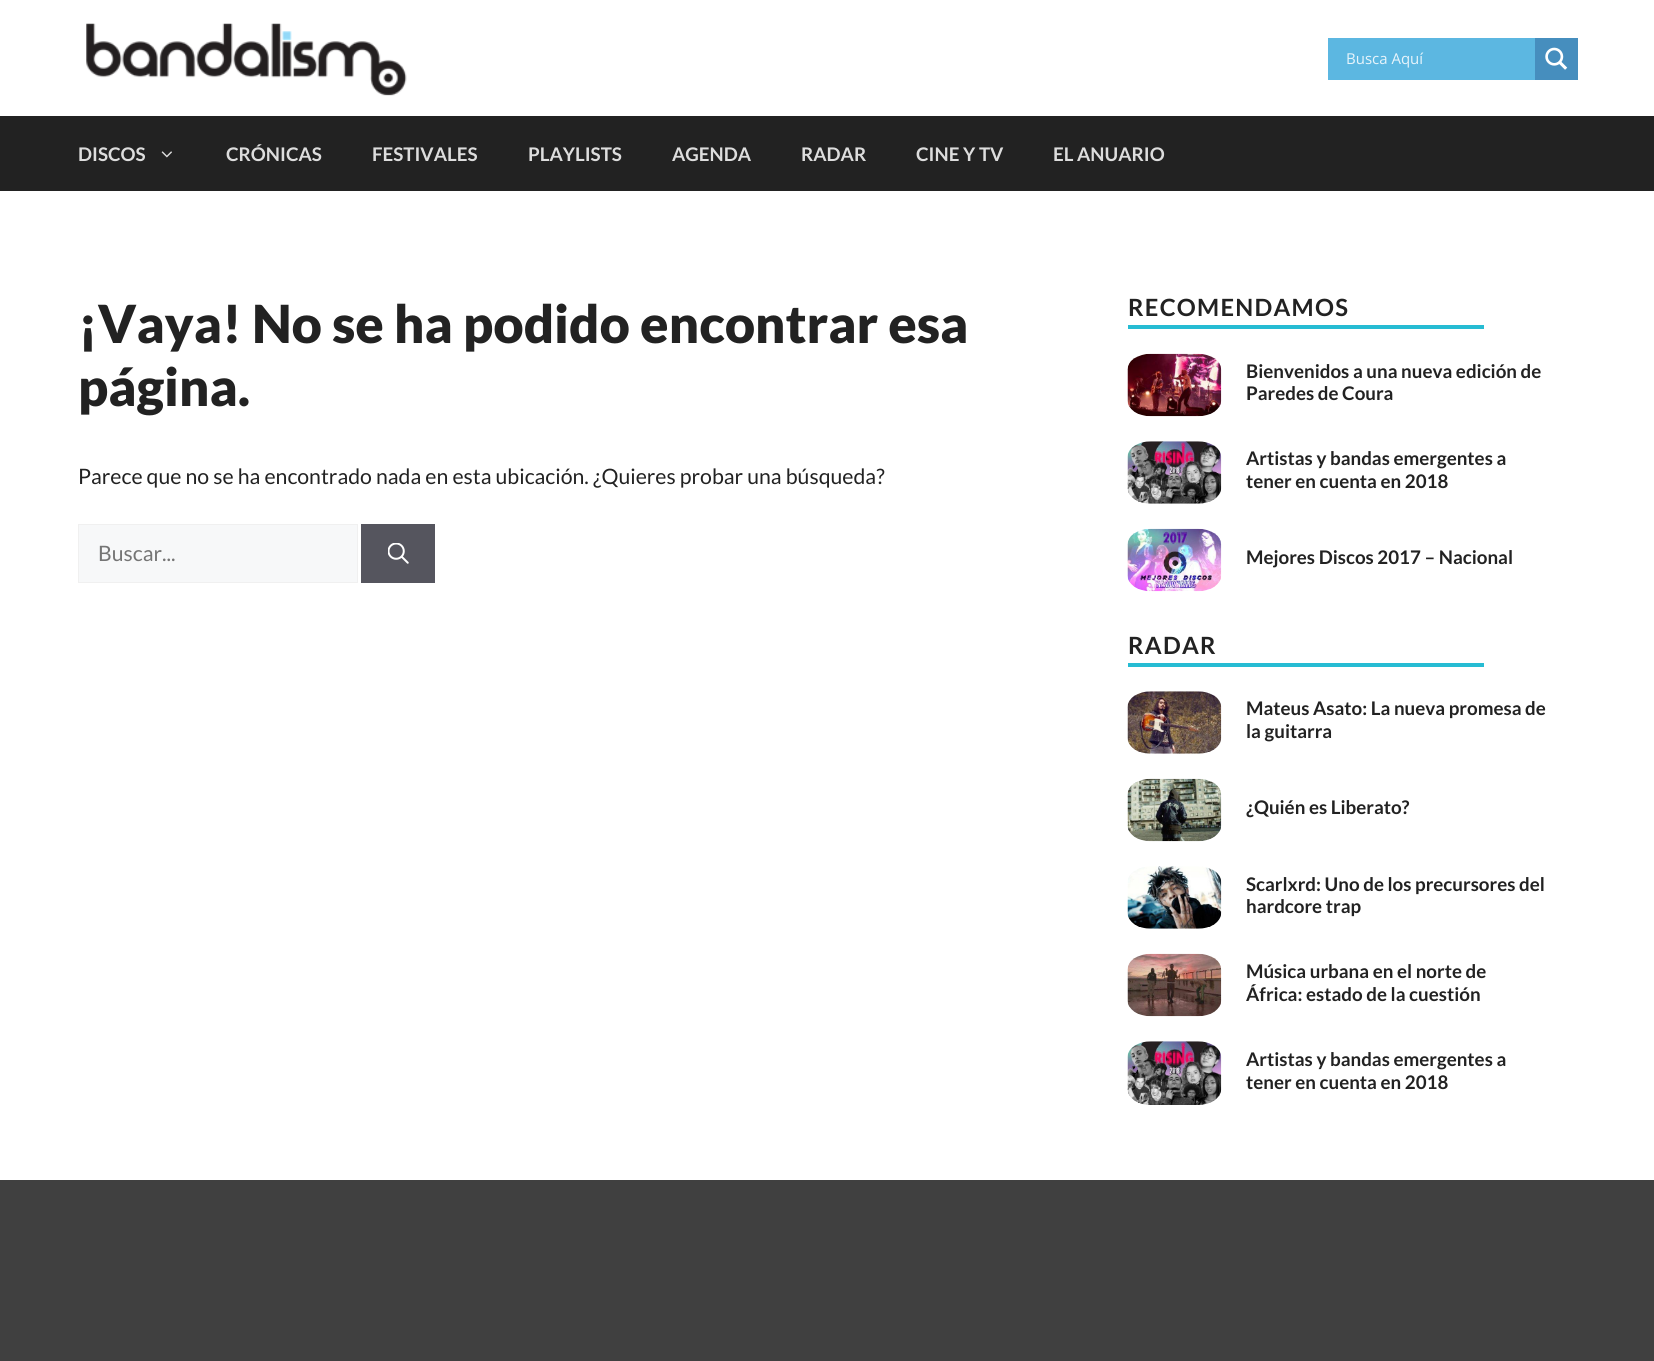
import math
import cairocffi as cairo

surface = cairo.ImageSurface(cairo.FORMAT_RGB24, 1654, 1361)
ctx = cairo.Context(surface)
options = cairo.FontOptions()
options.set_hint_metrics(cairo.HINT_METRICS_OFF)
options.set_hint_style(cairo.HINT_STYLE_NONE)
ctx.set_font_options(options)
ctx.set_miter_limit(4)


def rgb(r, g, b):
    ctx.set_source_rgb(r / 255, g / 255, b / 255)


def face(family, size, italic, bold):
    ctx.select_font_face(family, cairo.FONT_SLANT_ITALIC if italic else cairo.FONT_SLANT_NORMAL, cairo.FONT_WEIGHT_BOLD if bold else cairo.FONT_WEIGHT_NORMAL)
    ctx.set_font_size(size)


def label(x, y, s):
    ctx.move_to(x, y)
    ctx.show_text(s)


def tracked(x, y, s, letter, word):
    ctx.move_to(x, y)
    for ch in s:
        ctx.show_text(ch)
        ctx.rel_move_to(letter + word * (ch == ' '), 0)


def rect(x, y, w, h):
    ctx.rectangle(x, y, w, h)
    ctx.fill()


def image(path, x, y, w, h):
    ctx.save()
    ctx.set_source_surface(cairo.ImageSurface.create_from_png(path), x, y)
    ctx.rectangle(x, y, w, h)
    ctx.fill()
    ctx.restore()


rgb(255, 255, 255)
ctx.paint()
image('image0.png', 86, 23, 321, 73)
rgb(92, 183, 225)
rect(1328, 38, 207, 42)
face('Open Sans', 15, 0, 0)
rgb(231, 244, 251)
label(1346, 64, 'Busca Aquí')
rgb(70, 142, 190)
rect(1535, 38, 43, 42)
image('image1.png', 1545, 47, 23, 23)
rgb(34, 34, 34)
rect(0, 116, 1654, 75)
face('Lato', 18.75, 0, 1)
rgb(221, 221, 221)
label(78, 161, 'DISCOS')
image('image2.png', 161, 151, 11, 7)
label(226, 161, 'CRÓNICAS')
label(372, 161, 'FESTIVALES')
label(528, 161, 'PLAYLISTS')
label(672, 161, 'AGENDA')
label(801, 161, 'RADAR')
label(916, 161, 'CINE Y TV')
label(1053, 161, 'EL ANUARIO')
face('Lato Black', 52.5, 0, 0)
rgb(34, 34, 34)
label(78, 343, '¡Vaya! No se ha podido encontrar esa')
label(78, 406, 'página.')
face('Lato', 21.25, 0, 0)
label(78, 484, 'Parece que no se ha encontrado nada en esta ubicación. ¿Quieres probar una búsqueda?')
rgb(247, 248, 249)
ctx.rectangle(78.5, 524.5, 279, 58)
ctx.fill_preserve()
rgb(240, 240, 240)
ctx.set_line_width(1)
ctx.stroke()
rgb(117, 117, 117)
label(98, 561, 'Buscar...')
rgb(85, 85, 94)
rect(361, 524, 74, 59)
image('image3.png', 388, 543, 21, 21)
face('Lato', 23.75, 0, 1)
rgb(34, 34, 34)
tracked(1128, 316, 'RECOMENDAMOS', 1.25, 0)
rgb(38, 188, 211)
rect(1128, 325, 356, 4)
image('image4.png', 1127, 353, 95, 64)
face('Lato', 18.75, 0, 1)
rgb(34, 34, 34)
label(1246, 378, 'Bienvenidos a una nueva edición de')
label(1246, 400, 'Paredes de Coura')
image('image5.png', 1127, 441, 95, 63)
label(1246, 465, 'Artistas y bandas emergentes a')
label(1246, 488, 'tener en cuenta en 2018')
image('image6.png', 1127, 528, 95, 64)
label(1246, 564, 'Mejores Discos 2017 – Nacional')
face('Lato', 23.75, 0, 1)
tracked(1128, 654, 'RADAR', 1.25, 0)
rgb(38, 188, 211)
rect(1128, 663, 356, 4)
image('image7.png', 1127, 691, 95, 63)
face('Lato', 18.75, 0, 1)
rgb(34, 34, 34)
label(1246, 715, 'Mateus Asato: La nueva promesa de')
label(1246, 738, 'la guitarra')
image('image8.png', 1127, 778, 95, 64)
label(1246, 814, '¿Quién es Liberato?')
image('image9.png', 1127, 866, 95, 63)
label(1246, 891, 'Scarlxrd: Uno de los precursores del')
label(1246, 913, 'hardcore trap')
image('image10.png', 1127, 953, 95, 64)
label(1246, 978, 'Música urbana en el norte de')
label(1246, 1001, 'África: estado de la cuestión')
image('image11.png', 1127, 1041, 95, 64)
label(1246, 1066, 'Artistas y bandas emergentes a')
label(1246, 1089, 'tener en cuenta en 2018')
rgb(64, 64, 64)
rect(0, 1180, 1654, 181)
surface.write_to_png('render.png')
